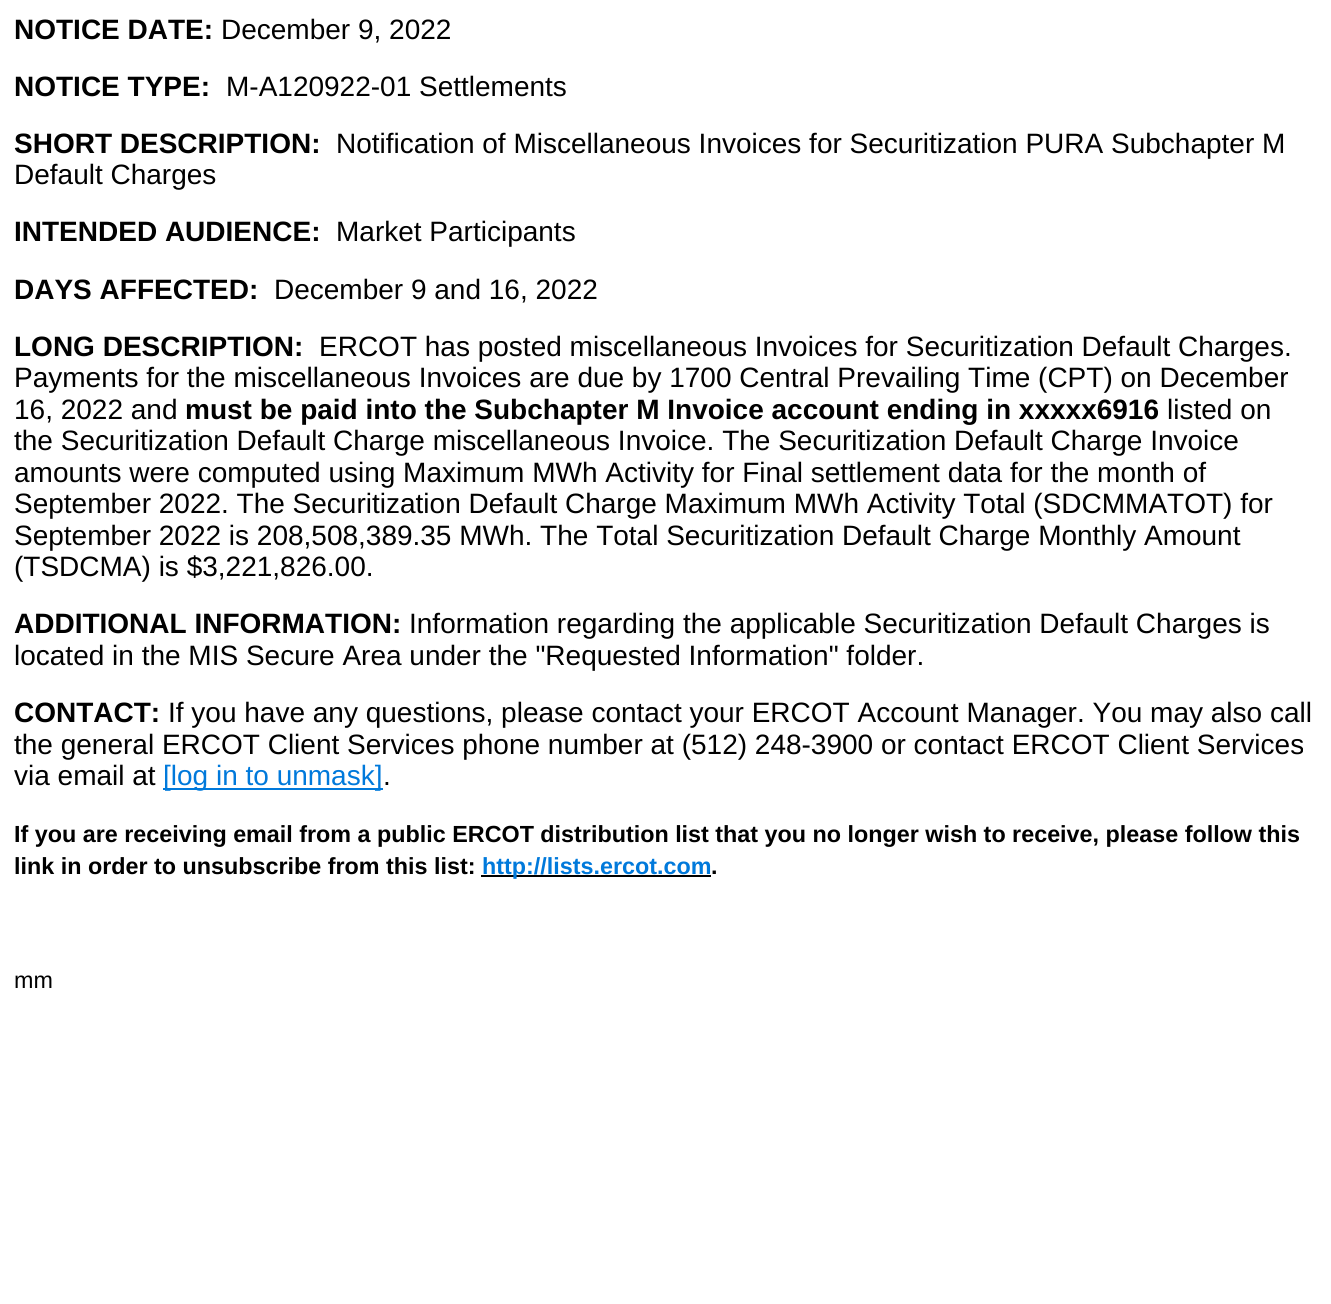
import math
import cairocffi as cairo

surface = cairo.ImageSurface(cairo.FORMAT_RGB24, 1331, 1304)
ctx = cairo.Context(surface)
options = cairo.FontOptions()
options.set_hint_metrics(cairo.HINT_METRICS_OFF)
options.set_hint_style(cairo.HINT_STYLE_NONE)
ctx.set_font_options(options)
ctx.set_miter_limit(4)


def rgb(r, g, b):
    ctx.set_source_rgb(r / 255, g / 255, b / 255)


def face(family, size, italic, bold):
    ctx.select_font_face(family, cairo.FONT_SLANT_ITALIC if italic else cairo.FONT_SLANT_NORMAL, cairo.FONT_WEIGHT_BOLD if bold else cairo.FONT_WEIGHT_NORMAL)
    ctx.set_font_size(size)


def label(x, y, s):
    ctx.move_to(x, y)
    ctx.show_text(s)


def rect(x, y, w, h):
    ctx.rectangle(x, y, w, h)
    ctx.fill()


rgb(255, 255, 255)
ctx.paint()
face('Liberation Sans', 28, 0, 1)
rgb(0, 0, 0)
label(14, 39, 'NOTICE DATE:')
face('Liberation Sans', 28, 0, 0)
label(221, 39, 'December 9, 2022')
face('Liberation Sans', 28, 0, 1)
label(14, 96, 'NOTICE TYPE:')
face('Liberation Sans', 28, 0, 0)
label(226, 96, 'M-A120922-01 Settlements')
face('Liberation Sans', 28, 0, 1)
label(14, 153, 'SHORT DESCRIPTION:')
face('Liberation Sans', 28, 0, 0)
label(336, 153, 'Notification of Miscellaneous Invoices for Securitization PURA Subchapter M')
label(14, 184, 'Default Charges')
face('Liberation Sans', 28, 0, 1)
label(14, 241, 'INTENDED AUDIENCE:')
face('Liberation Sans', 28, 0, 0)
label(336, 241, 'Market Participants')
face('Liberation Sans', 28, 0, 1)
label(14, 299, 'DAYS AFFECTED:')
face('Liberation Sans', 28, 0, 0)
label(274, 299, 'December 9 and 16, 2022')
face('Liberation Sans', 28, 0, 1)
label(14, 356, 'LONG DESCRIPTION:')
face('Liberation Sans', 28, 0, 0)
label(319, 356, 'ERCOT has posted miscellaneous Invoices for Securitization Default Charges.')
label(14, 387, 'Payments for the miscellaneous Invoices are due by 1700 Central Prevailing Time (CPT) on December')
label(14, 419, '16, 2022 and')
face('Liberation Sans', 28, 0, 1)
label(185, 419, 'must be paid into the Subchapter M Invoice account ending in xxxxx6916')
face('Liberation Sans', 28, 0, 0)
label(1167, 419, 'listed on')
label(14, 450, 'the Securitization Default Charge miscellaneous Invoice. The Securitization Default Charge Invoice')
label(14, 482, 'amounts were computed using Maximum MWh Activity for Final settlement data for the month of')
label(14, 513, 'September 2022. The Securitization Default Charge Maximum MWh Activity Total (SDCMMATOT) for')
label(14, 545, 'September 2022 is 208,508,389.35 MWh. The Total Securitization Default Charge Monthly Amount')
label(14, 576, '(TSDCMA) is $3,221,826.00.')
face('Liberation Sans', 28, 0, 1)
label(14, 633, 'ADDITIONAL INFORMATION:')
face('Liberation Sans', 28, 0, 0)
label(409, 633, 'Information regarding the applicable Securitization Default Charges is')
label(14, 665, 'located in the MIS Secure Area under the "Requested Information" folder.')
face('Liberation Sans', 28, 0, 1)
label(14, 722, 'CONTACT:')
face('Liberation Sans', 28, 0, 0)
label(168, 722, 'If you have any questions, please contact your ERCOT Account Manager. You may also call')
label(14, 754, 'the general ERCOT Client Services phone number at (512) 248-3900 or contact ERCOT Client Services')
label(14, 785, 'via email at')
rgb(0, 121, 219)
rect(163, 788, 220, 2)
label(163, 785, '[log in to unmask]')
rgb(0, 0, 0)
label(383, 785, '.')
face('Liberation Sans', 23.33, 0, 1)
label(14, 842, 'If you are receiving email from a public ERCOT distribution list that you no longer wish to receive, please follow this')
label(14, 874, 'link in order to unsubscribe from this list:')
rect(481, 875, 230, 2)
rgb(0, 121, 219)
label(482, 874, 'http://lists.ercot.com')
rgb(0, 0, 0)
label(711, 874, '.')
face('Liberation Sans', 23.33, 0, 0)
label(14, 988, 'mm')
surface.write_to_png('render.png')
